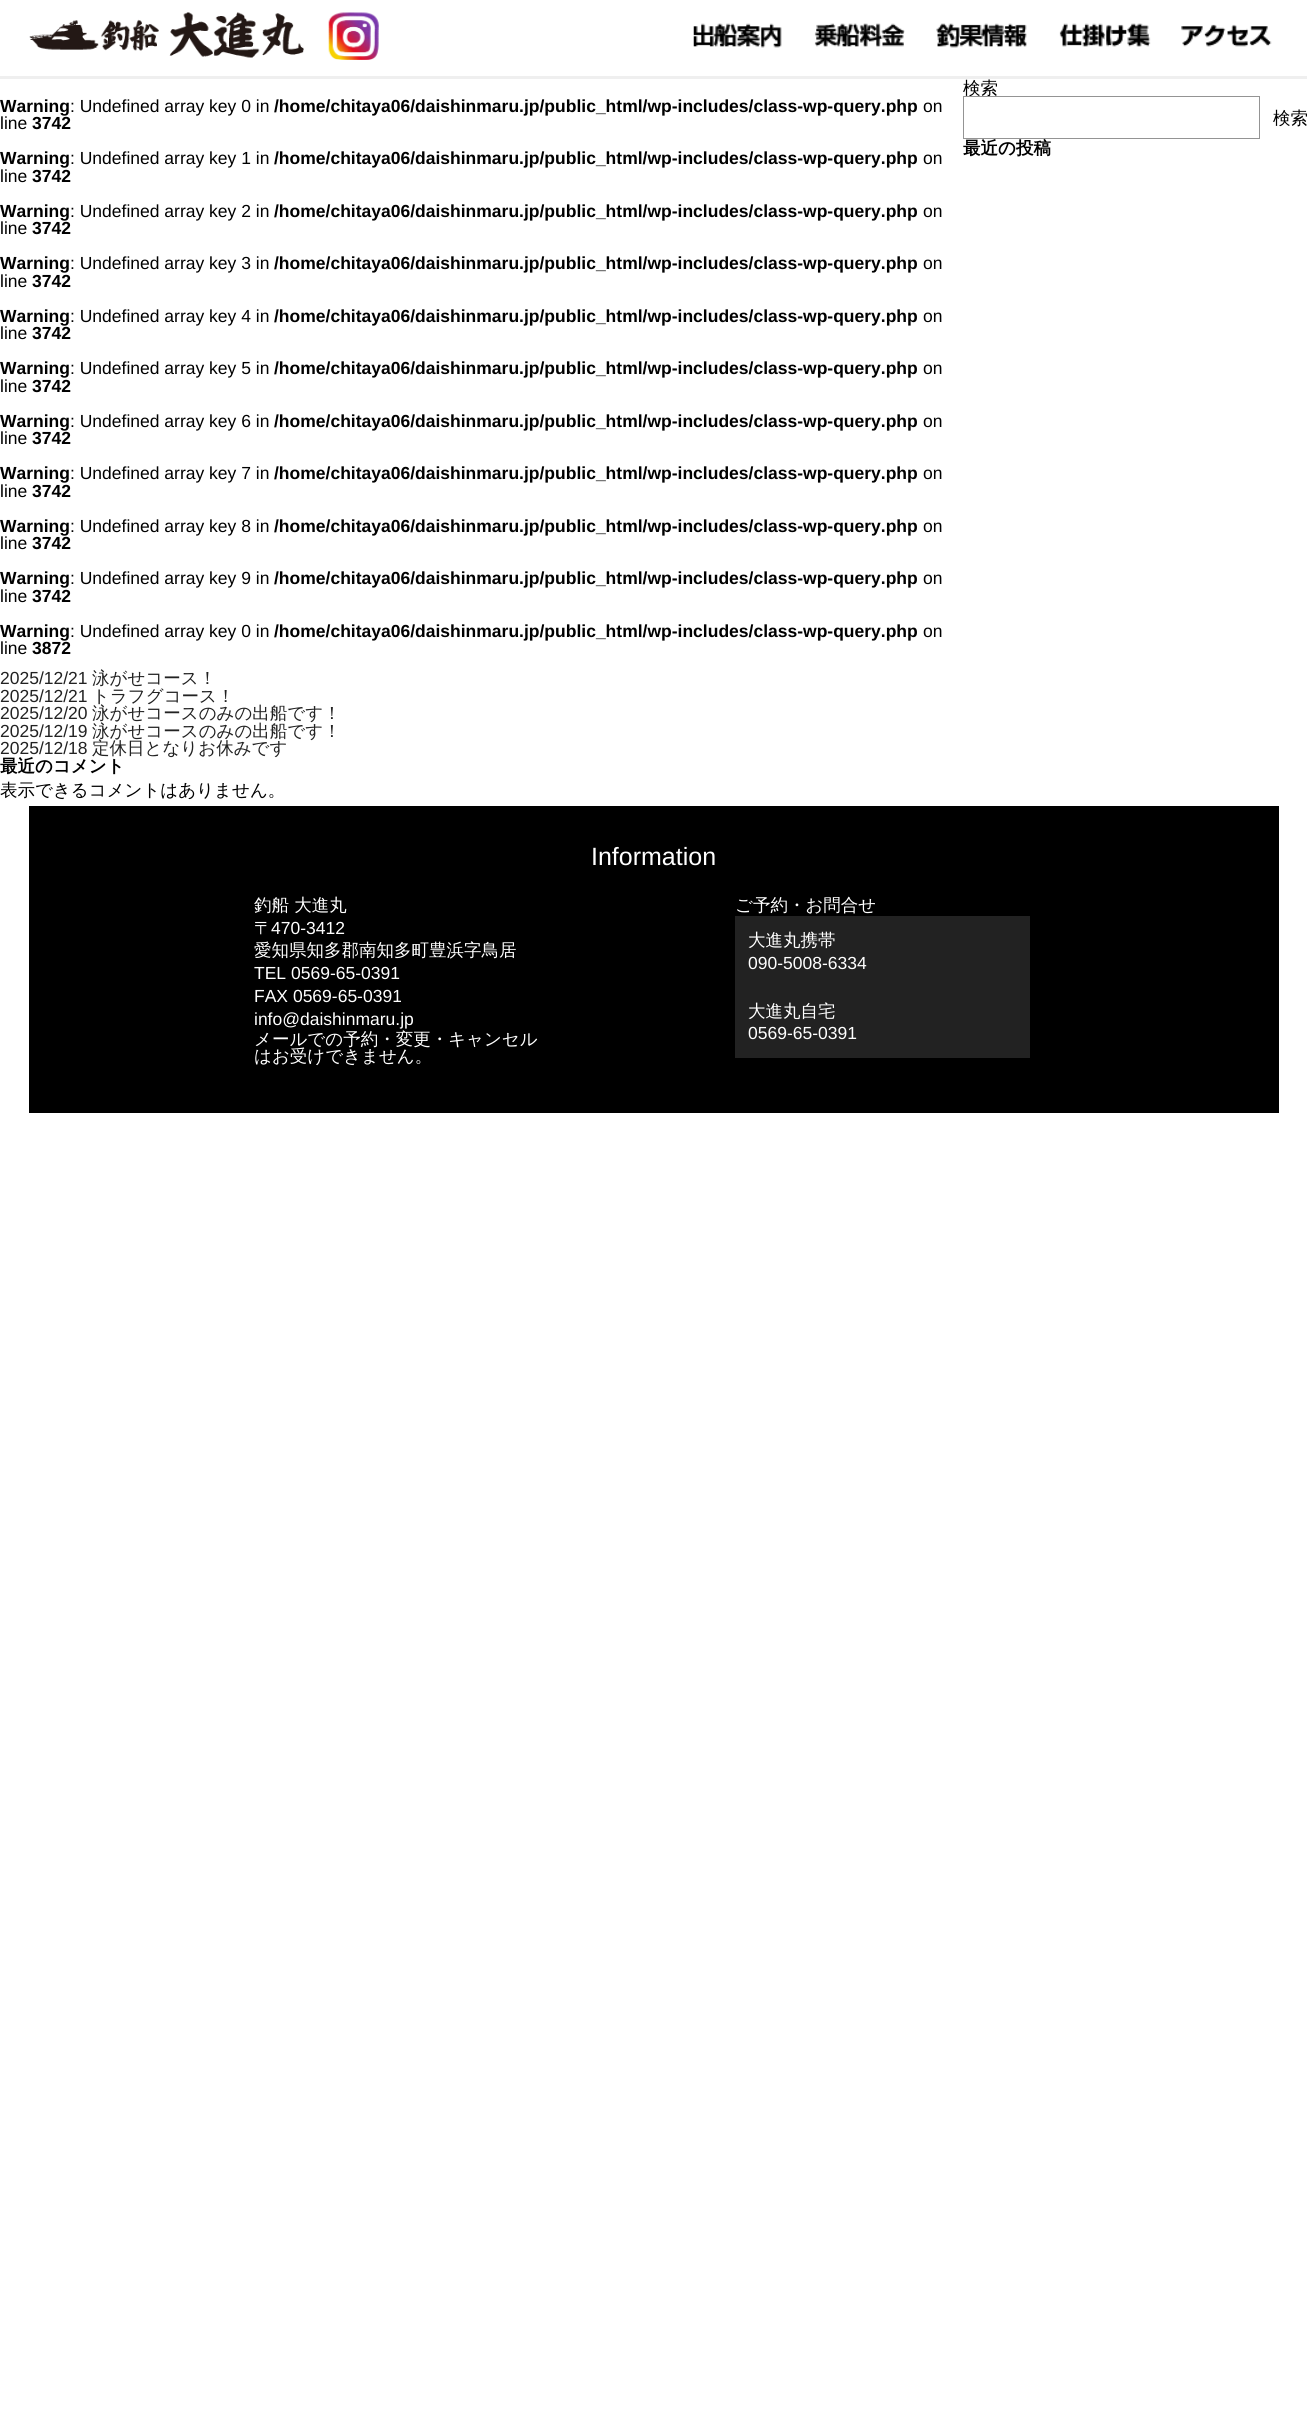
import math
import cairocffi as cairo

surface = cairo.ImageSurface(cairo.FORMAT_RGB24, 1307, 2425)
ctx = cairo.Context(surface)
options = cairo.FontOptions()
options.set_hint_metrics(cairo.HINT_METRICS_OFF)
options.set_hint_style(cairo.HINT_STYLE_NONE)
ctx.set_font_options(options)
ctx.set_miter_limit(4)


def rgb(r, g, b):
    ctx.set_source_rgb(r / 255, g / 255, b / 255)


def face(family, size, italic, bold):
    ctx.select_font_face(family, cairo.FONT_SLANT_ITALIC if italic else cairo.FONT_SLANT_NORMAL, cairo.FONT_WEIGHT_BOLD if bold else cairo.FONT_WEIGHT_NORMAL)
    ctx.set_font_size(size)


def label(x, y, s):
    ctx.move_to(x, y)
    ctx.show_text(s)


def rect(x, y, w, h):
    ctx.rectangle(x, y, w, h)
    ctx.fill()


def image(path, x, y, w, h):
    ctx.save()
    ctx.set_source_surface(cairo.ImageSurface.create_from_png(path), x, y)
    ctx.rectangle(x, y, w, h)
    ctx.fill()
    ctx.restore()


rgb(255, 255, 255)
ctx.paint()
rgb(239, 239, 239)
rect(0, 76, 1307, 3)
image('image0.png', 29, 12, 275, 46)
image('image1.png', 328, 12, 51, 48)
image('image2.png', 693, 23, 89, 25)
image('image3.png', 814, 23, 91, 24)
image('image4.png', 936, 23, 91, 25)
image('image5.png', 1059, 23, 92, 24)
image('image6.png', 1181, 24, 91, 23)
face('Liberation Sans', 17.5, 0, 1)
rgb(0, 0, 0)
label(0, 112, 'Warning')
face('Liberation Sans', 17.5, 0, 0)
label(70, 112, ': Undefined array key 0 in')
face('Liberation Sans', 17.5, 0, 1)
label(274, 112, '/home/chitaya06/daishinmaru.jp/public_html/wp-includes/class-wp-query.php')
face('Liberation Sans', 17.5, 0, 0)
label(923, 112, 'on')
label(0, 129, 'line')
face('Liberation Sans', 17.5, 0, 1)
label(32, 129, '3742')
label(0, 164, 'Warning')
face('Liberation Sans', 17.5, 0, 0)
label(70, 164, ': Undefined array key 1 in')
face('Liberation Sans', 17.5, 0, 1)
label(274, 164, '/home/chitaya06/daishinmaru.jp/public_html/wp-includes/class-wp-query.php')
face('Liberation Sans', 17.5, 0, 0)
label(923, 164, 'on')
label(0, 182, 'line')
face('Liberation Sans', 17.5, 0, 1)
label(32, 182, '3742')
label(0, 217, 'Warning')
face('Liberation Sans', 17.5, 0, 0)
label(70, 217, ': Undefined array key 2 in')
face('Liberation Sans', 17.5, 0, 1)
label(274, 217, '/home/chitaya06/daishinmaru.jp/public_html/wp-includes/class-wp-query.php')
face('Liberation Sans', 17.5, 0, 0)
label(923, 217, 'on')
label(0, 234, 'line')
face('Liberation Sans', 17.5, 0, 1)
label(32, 234, '3742')
label(0, 269, 'Warning')
face('Liberation Sans', 17.5, 0, 0)
label(70, 269, ': Undefined array key 3 in')
face('Liberation Sans', 17.5, 0, 1)
label(274, 269, '/home/chitaya06/daishinmaru.jp/public_html/wp-includes/class-wp-query.php')
face('Liberation Sans', 17.5, 0, 0)
label(923, 269, 'on')
label(0, 287, 'line')
face('Liberation Sans', 17.5, 0, 1)
label(32, 287, '3742')
label(0, 322, 'Warning')
face('Liberation Sans', 17.5, 0, 0)
label(70, 322, ': Undefined array key 4 in')
face('Liberation Sans', 17.5, 0, 1)
label(274, 322, '/home/chitaya06/daishinmaru.jp/public_html/wp-includes/class-wp-query.php')
face('Liberation Sans', 17.5, 0, 0)
label(923, 322, 'on')
label(0, 339, 'line')
face('Liberation Sans', 17.5, 0, 1)
label(32, 339, '3742')
label(0, 374, 'Warning')
face('Liberation Sans', 17.5, 0, 0)
label(70, 374, ': Undefined array key 5 in')
face('Liberation Sans', 17.5, 0, 1)
label(274, 374, '/home/chitaya06/daishinmaru.jp/public_html/wp-includes/class-wp-query.php')
face('Liberation Sans', 17.5, 0, 0)
label(923, 374, 'on')
label(0, 392, 'line')
face('Liberation Sans', 17.5, 0, 1)
label(32, 392, '3742')
label(0, 427, 'Warning')
face('Liberation Sans', 17.5, 0, 0)
label(70, 427, ': Undefined array key 6 in')
face('Liberation Sans', 17.5, 0, 1)
label(274, 427, '/home/chitaya06/daishinmaru.jp/public_html/wp-includes/class-wp-query.php')
face('Liberation Sans', 17.5, 0, 0)
label(923, 427, 'on')
label(0, 444, 'line')
face('Liberation Sans', 17.5, 0, 1)
label(32, 444, '3742')
label(0, 479, 'Warning')
face('Liberation Sans', 17.5, 0, 0)
label(70, 479, ': Undefined array key 7 in')
face('Liberation Sans', 17.5, 0, 1)
label(274, 479, '/home/chitaya06/daishinmaru.jp/public_html/wp-includes/class-wp-query.php')
face('Liberation Sans', 17.5, 0, 0)
label(923, 479, 'on')
label(0, 497, 'line')
face('Liberation Sans', 17.5, 0, 1)
label(32, 497, '3742')
label(0, 532, 'Warning')
face('Liberation Sans', 17.5, 0, 0)
label(70, 532, ': Undefined array key 8 in')
face('Liberation Sans', 17.5, 0, 1)
label(274, 532, '/home/chitaya06/daishinmaru.jp/public_html/wp-includes/class-wp-query.php')
face('Liberation Sans', 17.5, 0, 0)
label(923, 532, 'on')
label(0, 549, 'line')
face('Liberation Sans', 17.5, 0, 1)
label(32, 549, '3742')
label(0, 584, 'Warning')
face('Liberation Sans', 17.5, 0, 0)
label(70, 584, ': Undefined array key 9 in')
face('Liberation Sans', 17.5, 0, 1)
label(274, 584, '/home/chitaya06/daishinmaru.jp/public_html/wp-includes/class-wp-query.php')
face('Liberation Sans', 17.5, 0, 0)
label(923, 584, 'on')
label(0, 602, 'line')
face('Liberation Sans', 17.5, 0, 1)
label(32, 602, '3742')
label(0, 637, 'Warning')
face('Liberation Sans', 17.5, 0, 0)
label(70, 637, ': Undefined array key 0 in')
face('Liberation Sans', 17.5, 0, 1)
label(274, 637, '/home/chitaya06/daishinmaru.jp/public_html/wp-includes/class-wp-query.php')
face('Liberation Sans', 17.5, 0, 0)
label(923, 637, 'on')
label(0, 654, 'line')
face('Liberation Sans', 17.5, 0, 1)
label(32, 654, '3872')
face('WenQuanYi Zen Hei Medium', 17.5, 0, 0)
label(963, 94, '検索')
ctx.rectangle(963.5, 96.5, 296, 42)
rgb(148, 148, 148)
ctx.set_line_width(1)
ctx.stroke()
rgb(0, 0, 0)
label(1273, 124, '検索')
face('WenQuanYi Zen Hei', 17.5, 0, 1)
label(963, 154, '最近の投稿')
face('Liberation Sans', 17.5, 0, 0)
rgb(34, 34, 34)
label(0, 684, '2025/12/21')
face('WenQuanYi Zen Hei Medium', 17.5, 0, 0)
label(92, 684, '泳がせコース！')
face('Liberation Sans', 17.5, 0, 0)
label(0, 702, '2025/12/21')
face('WenQuanYi Zen Hei Medium', 17.5, 0, 0)
label(92, 702, 'トラフグコース！')
face('Liberation Sans', 17.5, 0, 0)
label(0, 719, '2025/12/20')
face('WenQuanYi Zen Hei Medium', 17.5, 0, 0)
label(92, 719, '泳がせコースのみの出船です！')
face('Liberation Sans', 17.5, 0, 0)
label(0, 737, '2025/12/19')
face('WenQuanYi Zen Hei Medium', 17.5, 0, 0)
label(92, 737, '泳がせコースのみの出船です！')
face('Liberation Sans', 17.5, 0, 0)
label(0, 754, '2025/12/18')
face('WenQuanYi Zen Hei Medium', 17.5, 0, 0)
label(92, 754, '定休日となりお休みです')
face('WenQuanYi Zen Hei', 17.5, 0, 1)
rgb(0, 0, 0)
label(0, 772, '最近のコメント')
face('WenQuanYi Zen Hei Medium', 17.5, 0, 0)
label(0, 796, '表示できるコメントはありません。')
rect(29, 806, 1250, 307)
face('Liberation Sans', 25, 0, 0)
rgb(255, 255, 255)
label(591, 865, 'Information')
face('WenQuanYi Zen Hei Medium', 17.5, 0, 0)
label(254, 911, '釣船 大進丸')
label(254, 934, '〒')
face('Liberation Sans', 17.5, 0, 0)
label(271, 934, '470-3412')
face('WenQuanYi Zen Hei Medium', 17.5, 0, 0)
label(254, 956, '愛知県知多郡南知多町豊浜字鳥居')
face('Liberation Sans', 17.5, 0, 0)
label(254, 979, 'TEL 0569-65-0391')
label(254, 1002, 'FAX 0569-65-0391')
label(254, 1025, 'info@daishinmaru.jp')
face('WenQuanYi Zen Hei Medium', 17.5, 0, 0)
label(254, 1045, 'メールでの予約・変更・キャンセル')
label(254, 1062, 'はお受けできません。')
label(735, 911, 'ご予約・お問合せ')
rgb(34, 34, 34)
rect(735, 916, 295, 142)
rgb(255, 255, 255)
label(748, 946, '大進丸携帯')
face('Liberation Sans', 17.5, 0, 0)
label(748, 969, '090-5008-6334')
face('WenQuanYi Zen Hei Medium', 17.5, 0, 0)
label(748, 1017, '大進丸自宅')
face('Liberation Sans', 17.5, 0, 0)
label(748, 1039, '0569-65-0391')
surface.write_to_png('render.png')
